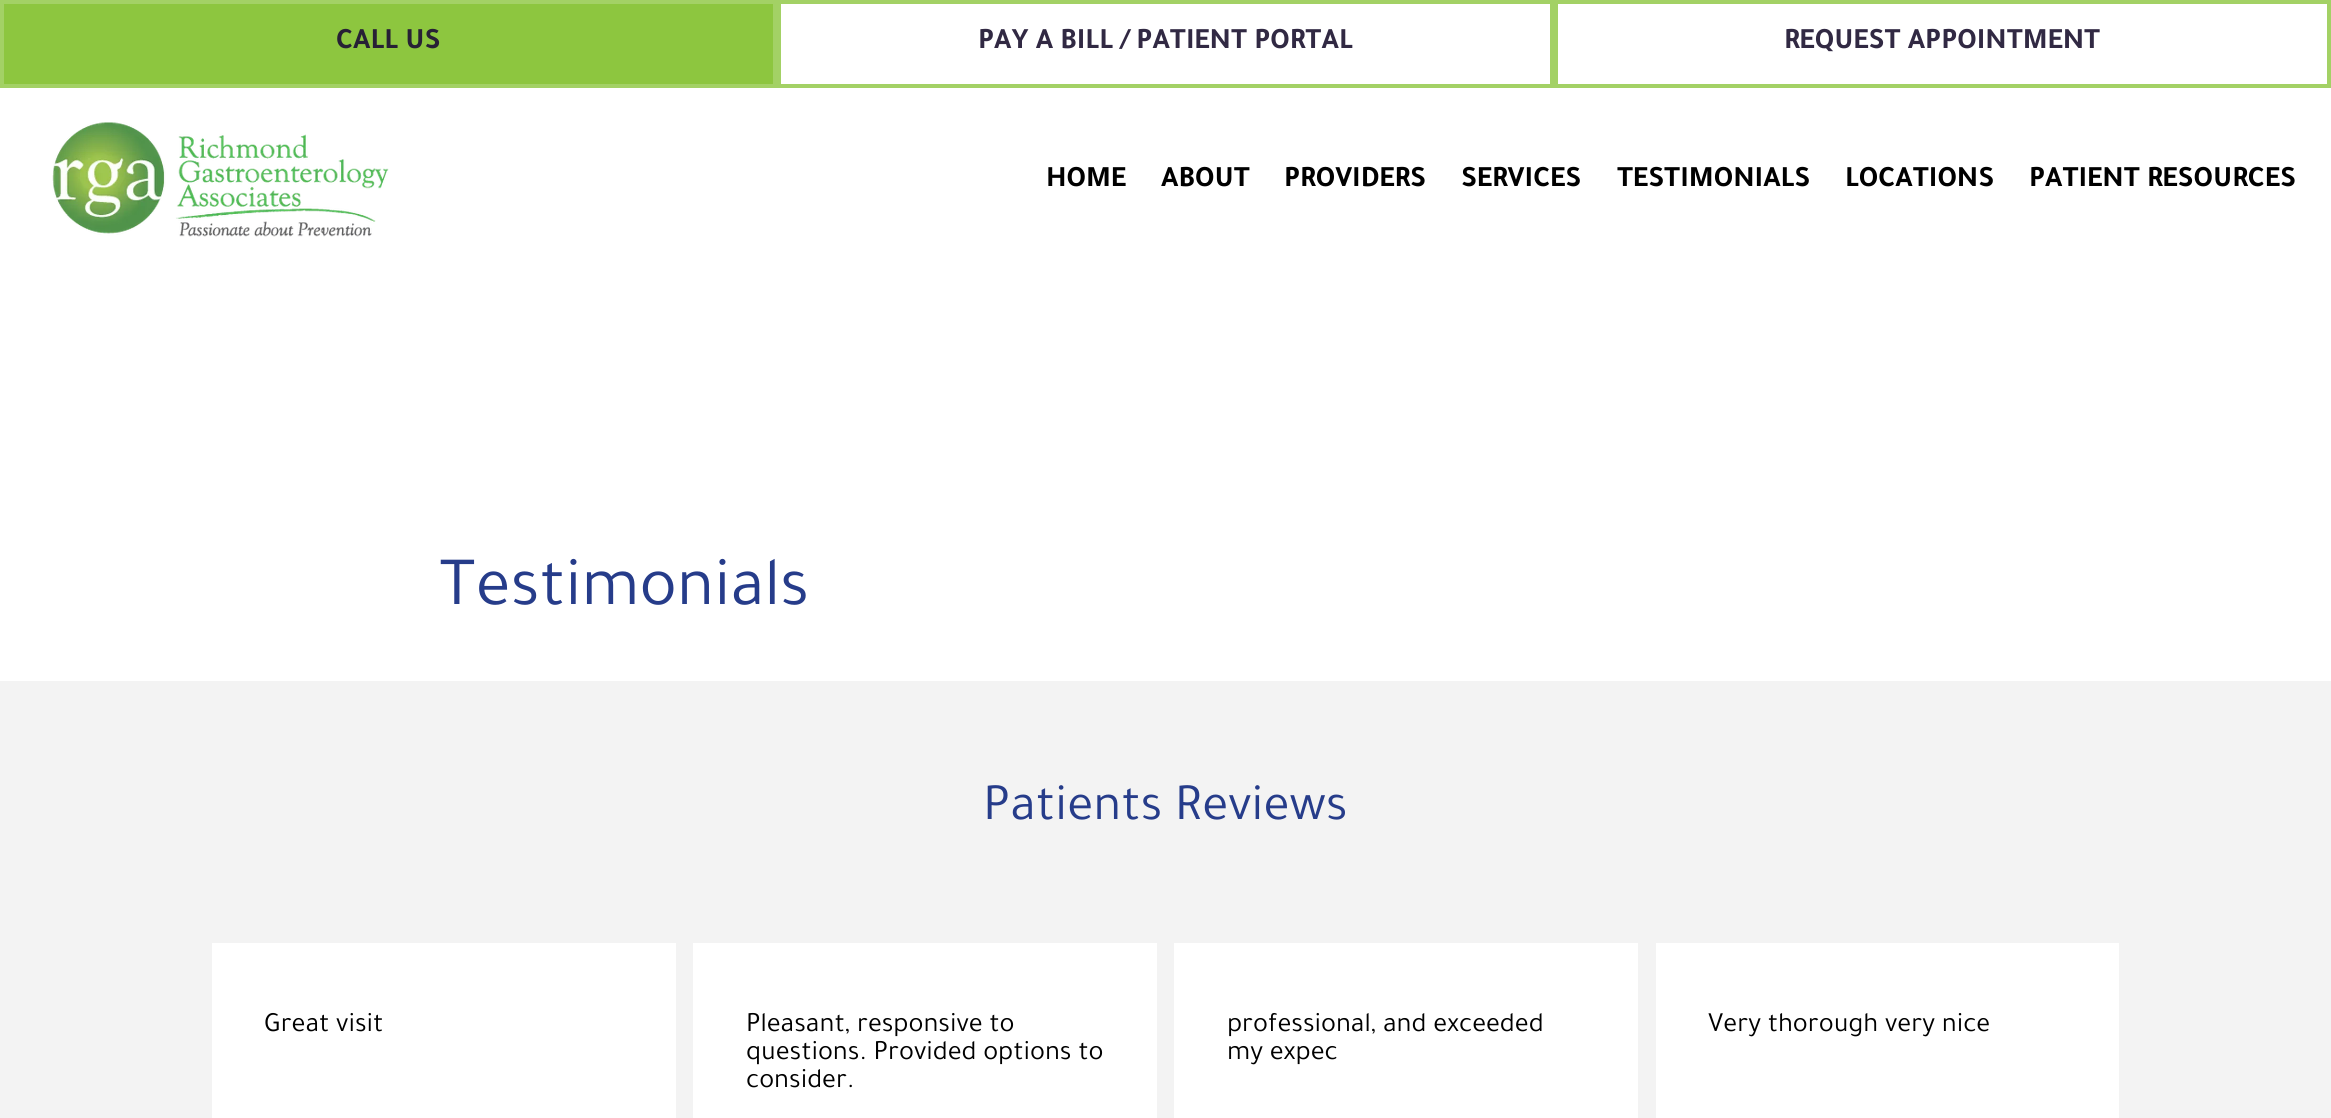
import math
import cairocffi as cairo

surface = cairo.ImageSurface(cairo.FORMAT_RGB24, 2331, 1118)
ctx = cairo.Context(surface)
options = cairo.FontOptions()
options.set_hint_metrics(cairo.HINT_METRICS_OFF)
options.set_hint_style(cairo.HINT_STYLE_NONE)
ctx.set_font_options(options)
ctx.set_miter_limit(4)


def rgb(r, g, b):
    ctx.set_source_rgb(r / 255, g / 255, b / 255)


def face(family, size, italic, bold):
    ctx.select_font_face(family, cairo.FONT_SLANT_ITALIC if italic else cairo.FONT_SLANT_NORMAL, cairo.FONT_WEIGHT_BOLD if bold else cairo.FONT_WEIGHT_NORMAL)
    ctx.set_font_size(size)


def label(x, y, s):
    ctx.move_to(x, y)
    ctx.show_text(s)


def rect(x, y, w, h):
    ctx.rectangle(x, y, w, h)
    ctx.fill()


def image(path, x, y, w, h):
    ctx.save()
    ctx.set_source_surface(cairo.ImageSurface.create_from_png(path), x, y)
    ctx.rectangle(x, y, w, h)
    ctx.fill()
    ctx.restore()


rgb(255, 255, 255)
ctx.paint()
rgb(141, 198, 63)
ctx.rectangle(2, 2, 773, 84)
ctx.fill_preserve()
rgb(163, 209, 101)
ctx.set_line_width(4)
ctx.stroke()
face('Tajawal', 29.75, 0, 1)
rgb(39, 32, 53)
label(336, 48, 'CALL US')
ctx.rectangle(779, 2, 773, 84)
rgb(163, 209, 101)
ctx.stroke()
rgb(49, 41, 67)
label(978, 48, 'PAY A BILL / PATIENT PORTAL')
ctx.rectangle(1556, 2, 773, 84)
rgb(163, 209, 101)
ctx.stroke()
rgb(49, 41, 67)
label(1784, 48, 'REQUEST APPOINTMENT')
image('image0.png', 52, 122, 337, 115)
rgb(0, 0, 0)
label(1046, 186, 'HOME')
label(1161, 186, 'ABOUT')
label(1284, 186, 'PROVIDERS')
label(1461, 186, 'SERVICES')
label(1617, 186, 'TESTIMONIALS')
label(1845, 186, 'LOCATIONS')
label(2029, 186, 'PATIENT RESOURCES')
face('Tajawal', 70, 0, 0)
rgb(38, 60, 138)
label(439, 604, 'Testimonials')
rgb(243, 243, 243)
rect(0, 681, 2331, 437)
face('Tajawal', 52.5, 0, 0)
rgb(38, 60, 138)
label(983, 819, 'Patients Reviews')
rgb(255, 255, 255)
rect(212, 943, 464, 175)
face('Tajawal', 28, 0, 0)
rgb(0, 0, 0)
label(264, 1031, 'Great visit')
rgb(255, 255, 255)
rect(693, 943, 464, 175)
rgb(0, 0, 0)
label(746, 1031, 'Pleasant, responsive to')
label(746, 1059, 'questions. Provided options to')
label(746, 1087, 'consider.')
rgb(255, 255, 255)
rect(1174, 943, 464, 175)
rgb(0, 0, 0)
label(1227, 1031, 'professional, and exceeded')
label(1227, 1059, 'my expec')
rgb(255, 255, 255)
rect(1656, 943, 463, 175)
rgb(0, 0, 0)
label(1708, 1031, 'Very thorough very nice')
surface.write_to_png('render.png')
